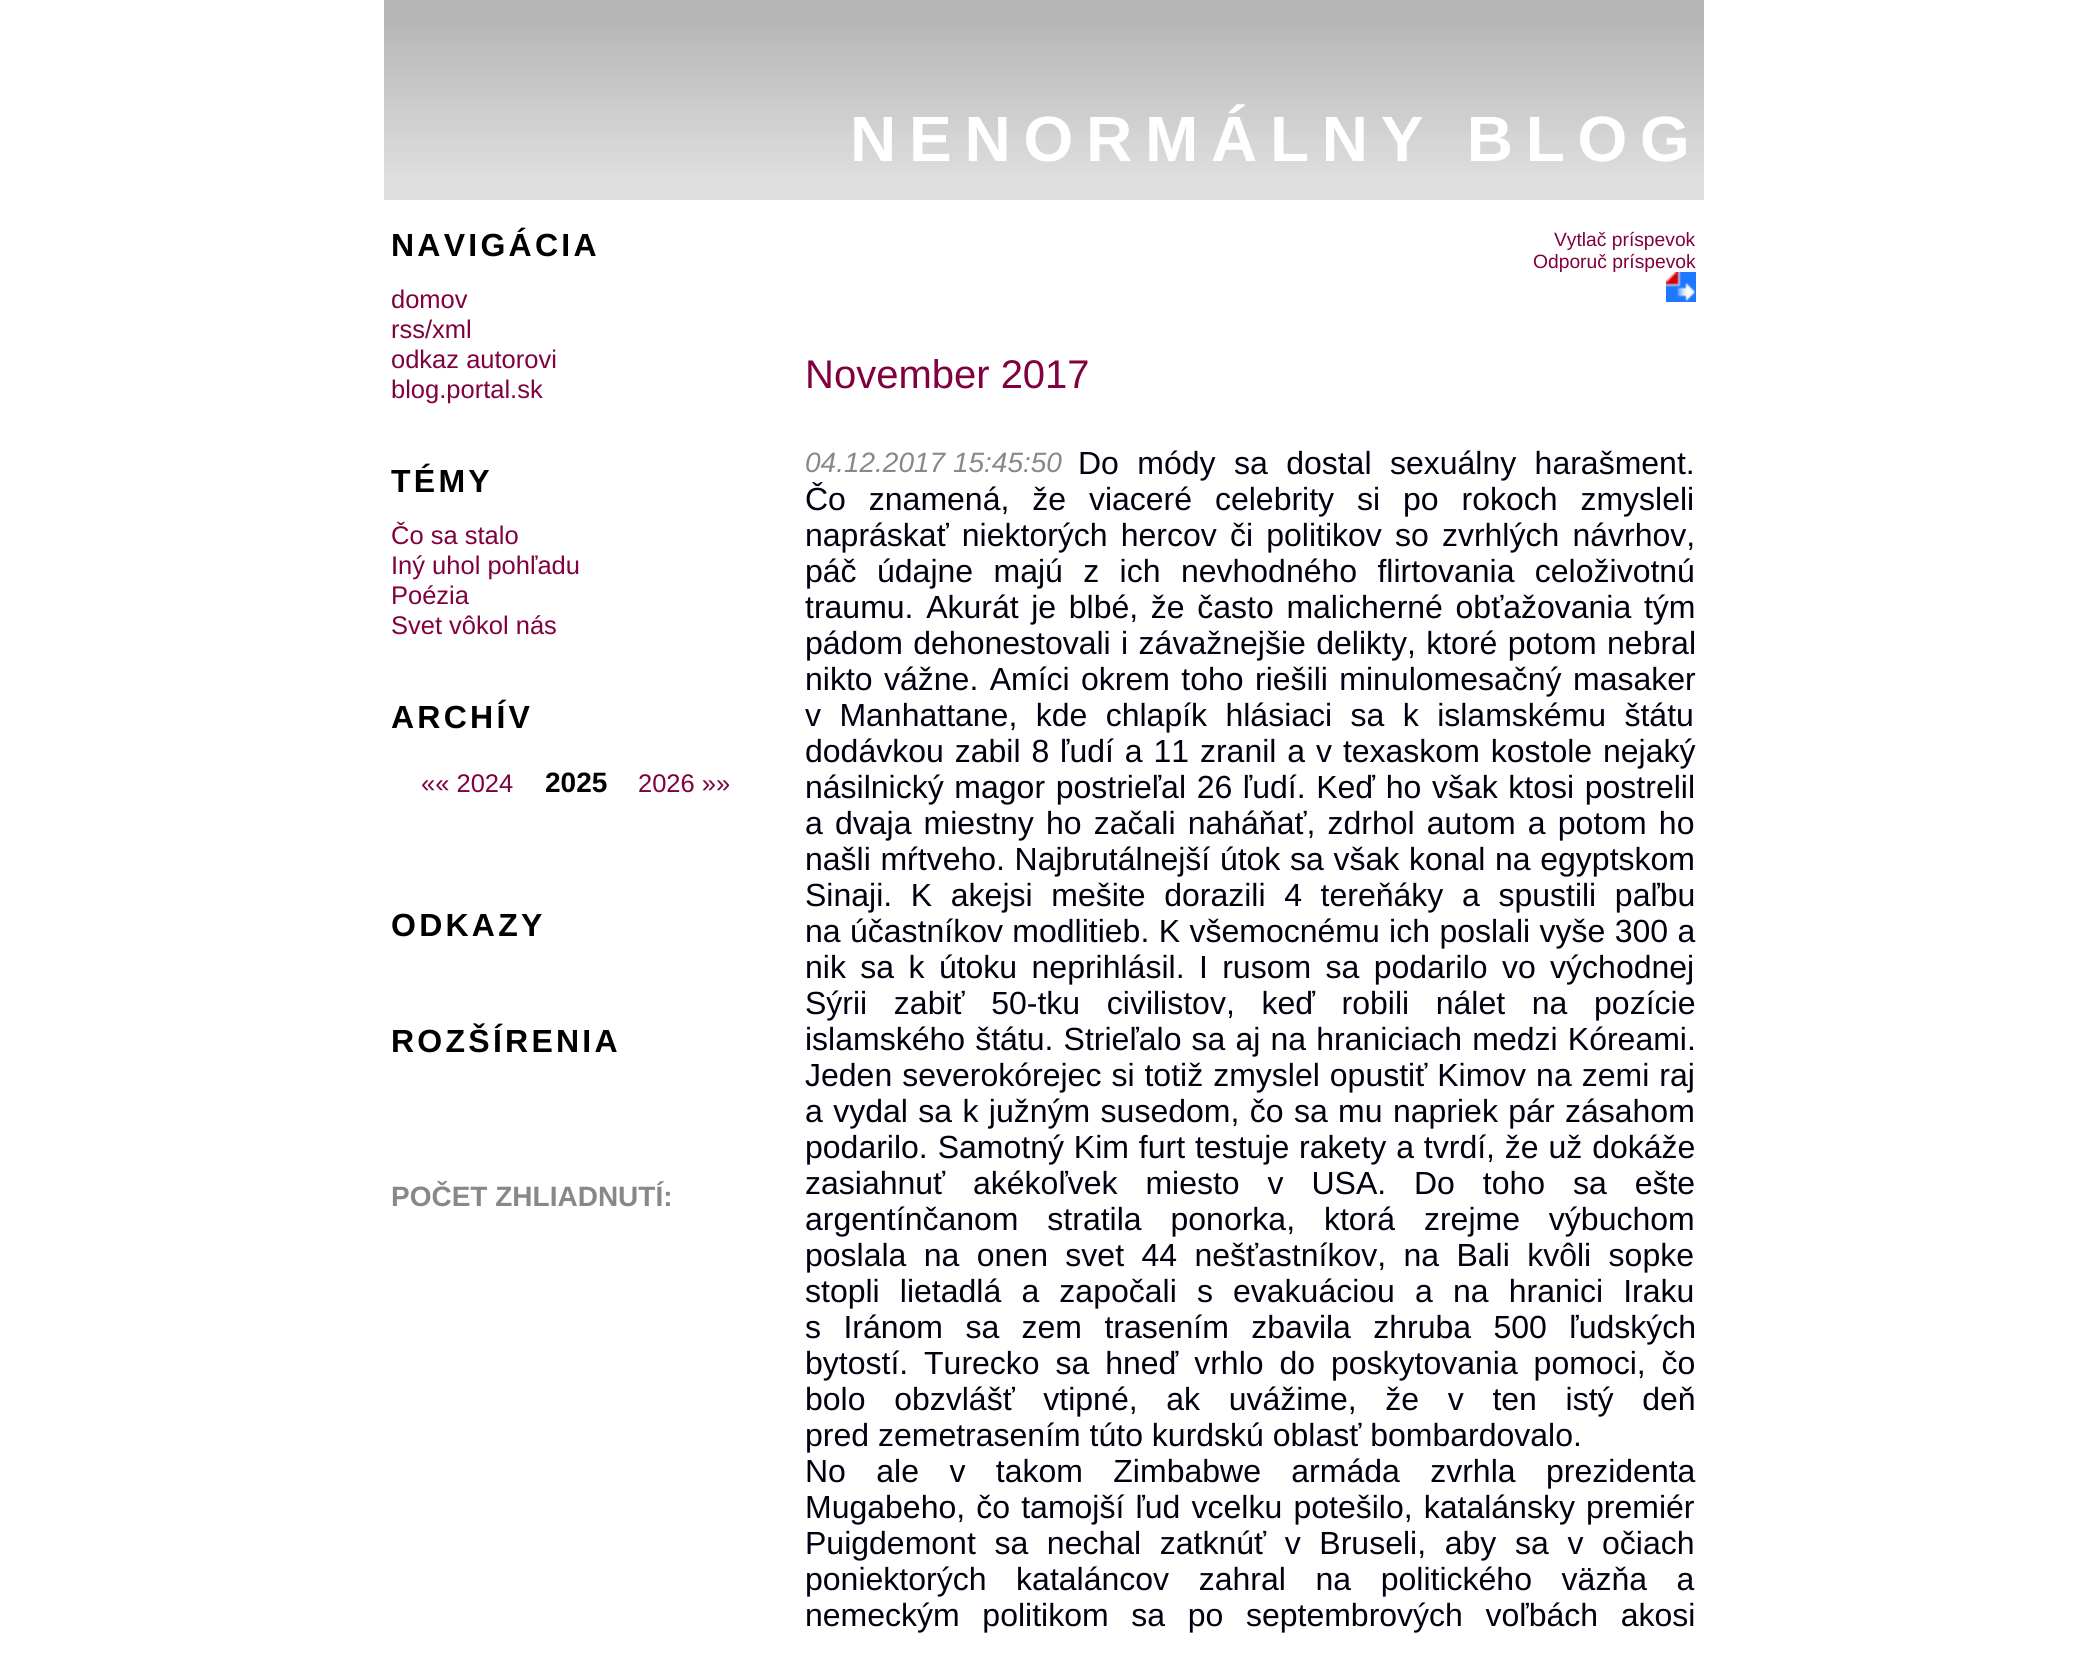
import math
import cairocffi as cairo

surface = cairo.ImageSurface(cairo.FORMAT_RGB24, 2085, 1653)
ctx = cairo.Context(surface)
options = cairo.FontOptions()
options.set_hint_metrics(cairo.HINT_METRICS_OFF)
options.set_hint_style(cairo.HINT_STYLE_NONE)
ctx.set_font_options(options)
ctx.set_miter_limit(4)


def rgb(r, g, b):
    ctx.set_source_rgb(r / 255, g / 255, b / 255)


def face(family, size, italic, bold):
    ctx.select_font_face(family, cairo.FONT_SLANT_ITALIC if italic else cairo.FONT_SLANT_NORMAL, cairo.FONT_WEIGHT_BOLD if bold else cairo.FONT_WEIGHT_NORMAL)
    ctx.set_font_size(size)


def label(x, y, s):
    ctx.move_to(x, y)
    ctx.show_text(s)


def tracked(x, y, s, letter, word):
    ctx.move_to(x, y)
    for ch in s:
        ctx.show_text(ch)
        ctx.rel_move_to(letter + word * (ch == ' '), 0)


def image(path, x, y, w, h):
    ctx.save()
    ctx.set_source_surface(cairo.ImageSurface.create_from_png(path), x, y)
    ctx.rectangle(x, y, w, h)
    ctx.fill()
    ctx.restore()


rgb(255, 255, 255)
ctx.paint()
image('image0.png', 384, 0, 1320, 200)
face('Liberation Sans', 64, 0, 1)
rgb(255, 255, 255)
tracked(850, 161, 'NENORMÁLNY BLOG', 12.75, 0)
face('Liberation Sans', 32, 0, 1)
rgb(0, 0, 0)
tracked(391, 256, 'NAVIGÁCIA', 3.25, 0)
face('Liberation Sans', 25.5, 0, 0)
rgb(128, 0, 64)
label(391, 308, 'domov')
label(391, 338, 'rss/xml')
label(391, 368, 'odkaz autorovi')
label(391, 398, 'blog.portal.sk')
face('Liberation Sans', 32, 0, 1)
rgb(0, 0, 0)
tracked(391, 492, 'TÉMY', 3.25, 0)
face('Liberation Sans', 25.5, 0, 0)
rgb(128, 0, 64)
label(391, 544, 'Čo sa stalo')
label(391, 574, 'Iný uhol pohľadu')
label(391, 604, 'Poézia')
label(391, 634, 'Svet vôkol nás')
face('Liberation Sans', 32, 0, 1)
rgb(0, 0, 0)
tracked(391, 728, 'ARCHÍV', 3.25, 0)
face('Liberation Sans', 25.5, 0, 0)
rgb(128, 0, 64)
label(421, 792, '«« 2024')
face('Liberation Sans', 28, 0, 1)
rgb(0, 0, 0)
label(545, 792, '2025')
face('Liberation Sans', 25.5, 0, 0)
rgb(128, 0, 64)
label(638, 792, '2026 »»')
face('Liberation Sans', 32, 0, 1)
rgb(0, 0, 0)
tracked(391, 936, 'ODKAZY', 3.25, 0)
tracked(391, 1052, 'ROZŠÍRENIA', 3.25, 0)
face('Liberation Sans', 28, 0, 1)
rgb(136, 136, 136)
label(391, 1206, 'POČET ZHLIADNUTÍ:')
face('Liberation Sans', 19.25, 0, 0)
rgb(128, 0, 64)
label(1554, 246, 'Vytlač príspevok')
label(1533, 268, 'Odporuč príspevok')
image('image1.png', 1666, 272, 30, 30)
face('Liberation Sans', 40, 0, 0)
label(805, 388, 'November 2017')
face('Liberation Sans', 32, 0, 0)
rgb(0, 0, 17)
tracked(1078, 474, 'Do módy sa dostal sexuálny harašment.', 0, 9.5)
tracked(805, 510, 'Čo znamená, že viaceré celebrity si po rokoch zmysleli', 0, 14)
tracked(805, 546, 'napráskať niektorých hercov či politikov so zvrhlých návrhov,', 0, 4.25)
tracked(805, 582, 'páč údajne majú z ich nevhodného flirtovania celoživotnú', 0, 11.5)
tracked(805, 618, 'traumu. Akurát je blbé, že často malicherné obťažovania tým', 0, 3.75)
tracked(805, 654, 'pádom dehonestovali i závažnejšie delikty, ktoré potom nebral', 0, 1.5)
tracked(805, 690, 'nikto vážne. Amíci okrem toho riešili minulomesačný masaker', 0, 2.5)
tracked(805, 726, 'v Manhattane, kde chlapík hlásiaci sa k islamskému štátu', 0, 9.5)
tracked(805, 762, 'dodávkou zabil 8 ľudí a 11 zranil a v texaskom kostole nejaký', 0, 2)
tracked(805, 798, 'násilnický magor postrieľal 26 ľudí. Keď ho však ktosi postrelil', 0, 1.75)
tracked(805, 834, 'a dvaja miestny ho začali naháňať, zdrhol autom a potom ho', 0, 3.25)
tracked(805, 870, 'našli mŕtveho. Najbrutálnejší útok sa však konal na egyptskom', 0, 0.75)
tracked(805, 906, 'Sinaji. K akejsi mešite dorazili 4 tereňáky a spustili paľbu', 0, 9.75)
tracked(805, 942, 'na účastníkov modlitieb. K všemocnému ich poslali vyše 300 a', 0, 0.5)
tracked(805, 978, 'nik sa k útoku neprihlásil. I rusom sa podarilo vo východnej', 0, 5.5)
tracked(805, 1014, 'Sýrii zabiť 50-tku civilistov, keď robili nálet na pozície', 0, 17.75)
tracked(805, 1050, 'islamského štátu. Strieľalo sa aj na hraniciach medzi Kóreami.', 0, 1.25)
tracked(805, 1086, 'Jeden severokórejec si totiž zmyslel opustiť Kimov na zemi raj', 0, 1.1)
tracked(805, 1122, 'a vydal sa k južným susedom, čo sa mu napriek pár zásahom', 0, 1.5)
tracked(805, 1158, 'podarilo. Samotný Kim furt testuje rakety a tvrdí, že už dokáže', 0, 1)
tracked(805, 1194, 'zasiahnuť akékoľvek miesto v USA. Do toho sa ešte', 0, 19)
tracked(805, 1230, 'argentínčanom stratila ponorka, ktorá zrejme výbuchom', 0, 20)
tracked(805, 1266, 'poslala na onen svet 44 nešťastníkov, na Bali kvôli sopke', 0, 8.5)
tracked(805, 1302, 'stopli lietadlá a započali s evakuáciou a na hranici Iraku', 0, 11.25)
tracked(805, 1338, 's Iránom sa zem trasením zbavila zhruba 500 ľudských', 0, 13.5)
tracked(805, 1374, 'bytostí. Turecko sa hneď vrhlo do poskytovania pomoci, čo', 0, 7)
tracked(805, 1410, 'bolo obzvlášť vtipné, ak uvážime, že v ten istý deň', 0, 19.75)
label(805, 1446, 'pred zemetrasením túto kurdskú oblasť bombardovalo.')
tracked(805, 1482, 'No ale v takom Zimbabwe armáda zvrhla prezidenta', 0, 21.5)
tracked(805, 1518, 'Mugabeho, čo tamojší ľud vcelku potešilo, katalánsky premiér', 0, 2.25)
tracked(805, 1554, 'Puigdemont sa nechal zatknúť v Bruseli, aby sa v očiach', 0, 9.75)
tracked(805, 1590, 'poniektorých kataláncov zahral na politického väzňa a', 0, 20.75)
tracked(805, 1626, 'nemeckým politikom sa po septembrových voľbách akosi', 0, 13.75)
face('Liberation Sans', 28, 1, 0)
rgb(136, 136, 136)
label(805, 472, '04.12.2017 15:45:50')
surface.write_to_png('render.png')
